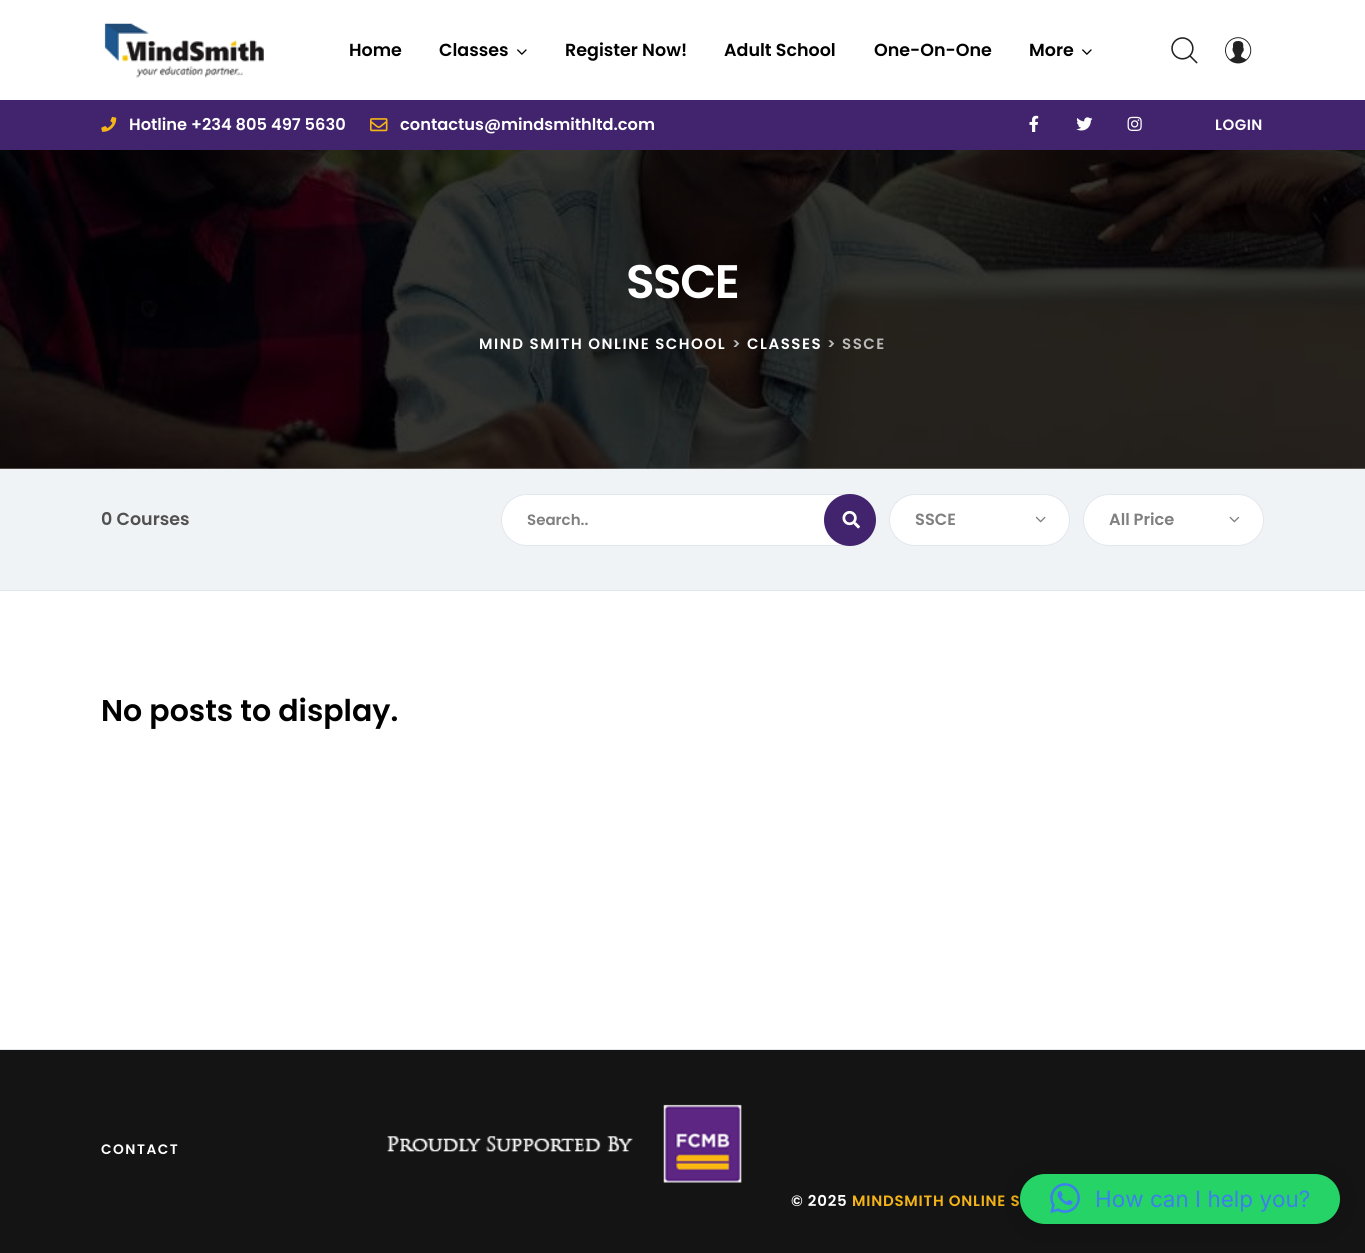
import math
import cairocffi as cairo

surface = cairo.ImageSurface(cairo.FORMAT_RGB24, 1365, 1253)
ctx = cairo.Context(surface)
options = cairo.FontOptions()
options.set_hint_metrics(cairo.HINT_METRICS_OFF)
options.set_hint_style(cairo.HINT_STYLE_NONE)
ctx.set_font_options(options)
ctx.set_miter_limit(4)


def rgb(r, g, b):
    ctx.set_source_rgb(r / 255, g / 255, b / 255)


def face(family, size, italic, bold):
    ctx.select_font_face(family, cairo.FONT_SLANT_ITALIC if italic else cairo.FONT_SLANT_NORMAL, cairo.FONT_WEIGHT_BOLD if bold else cairo.FONT_WEIGHT_NORMAL)
    ctx.set_font_size(size)


def label(x, y, s):
    ctx.move_to(x, y)
    ctx.show_text(s)


def tracked(x, y, s, letter, word):
    ctx.move_to(x, y)
    for ch in s:
        ctx.show_text(ch)
        ctx.rel_move_to(letter + word * (ch == ' '), 0)


def rect(x, y, w, h):
    ctx.rectangle(x, y, w, h)
    ctx.fill()


def rrect(x, y, w, h, r):
    ctx.new_sub_path()
    for i, (u, v) in enumerate([(x + w - r, y + h - r), (x + r, y + h - r), (x + r, y + r), (x + w - r, y + r)]):
        ctx.arc(u, v, r, i * math.pi / 2, (i + 1) * math.pi / 2)
    ctx.close_path()


def soft_shadow(x, y, w, h, r, blur, alpha):
    ctx.push_group_with_content(cairo.CONTENT_ALPHA)
    ctx.set_operator(cairo.OPERATOR_SOURCE)
    for i in range(15, -16, -2):
        e = blur * i / 6
        if min(w, h) + 2 * e > 0:
            ctx.set_source_rgba(0, 0, 0, alpha * math.erfc((i - 1) / 8.5) / 2)
            rrect(x - e, y - e, w + 2 * e, h + 2 * e, max(0, min(r + e + blur * .6, min(w, h) / 2 + e)))
            ctx.fill()
    ctx.mask(ctx.pop_group())


def image(path, x, y, w, h):
    ctx.save()
    ctx.set_source_surface(cairo.ImageSurface.create_from_png(path), x, y)
    ctx.rectangle(x, y, w, h)
    ctx.fill()
    ctx.restore()


rgb(255, 255, 255)
ctx.paint()
image('image0.png', 104, 23, 160, 55)
face('Poppins SemiBold', 17.5, 0, 0)
rgb(0, 0, 0)
label(349, 56, 'Home')
label(439, 56, 'Classes')
image('image1.png', 517, 49, 10, 6)
label(565, 56, 'Register Now!')
label(724, 56, 'Adult School')
label(874, 56, 'One-On-One')
label(1029, 56, 'More')
image('image1.png', 1082, 49, 10, 6)
image('image2.png', 1171, 37, 27, 27)
image('image3.png', 1225, 37, 27, 27)
rgb(65, 36, 109)
rect(0, 100, 1365, 50)
image('image4.png', 101, 116, 16, 16)
face('Poppins SemiBold', 16.25, 0, 0)
rgb(255, 255, 255)
label(129, 130, 'Hotline +234 805 497 5630')
image('image5.png', 370, 118, 18, 14)
label(400, 130, 'contactus@mindsmithltd.com')
image('image6.png', 1029, 115, 10, 17)
image('image7.png', 1076, 117, 17, 14)
image('image8.png', 1127, 116, 15, 15)
face('Poppins SemiBold', 15, 0, 0)
tracked(1215, 130, 'LOGIN', 0.5, 0)
image('image9.png', 0, 150, 1365, 319)
face('Poppins SemiBold', 47, 0, 0)
tracked(626, 298, 'SSCE', -1.5, 0)
face('Poppins SemiBold', 15, 0, 0)
tracked(479, 349, 'MIND SMITH ONLINE SCHOOL', 1.5, 0)
rgb(186, 186, 186)
tracked(732, 349, '>', 1.5, 0)
rgb(255, 255, 255)
tracked(747, 349, 'CLASSES', 1.5, 0)
rgb(186, 186, 186)
tracked(827, 349, '> SSCE', 1.5, 0)
rgb(240, 243, 246)
rect(0, 469, 1365, 121)
rgb(226, 231, 237)
rect(0, 590, 1365, 1)
face('Poppins SemiBold', 17.5, 0, 0)
rgb(81, 81, 81)
label(101, 525, '0 Courses')
rgb(255, 255, 255)
rrect(501.5, 494.5, 374, 51, 25.5)
ctx.fill_preserve()
rgb(226, 231, 237)
ctx.set_line_width(1)
ctx.stroke()
face('Poppins SemiBold', 15, 0, 0)
rgb(127, 127, 127)
label(527, 525, 'Search..')
rgb(65, 36, 109)
ctx.new_path()
ctx.arc(850, 520, 26, 0, 2 * math.pi)
ctx.fill()
image('image10.png', 842, 510, 18, 19)
rgb(255, 255, 255)
rrect(889.5, 494.5, 180, 51, 25.5)
ctx.fill_preserve()
rgb(226, 231, 237)
ctx.stroke()
face('Poppins SemiBold', 16.25, 0, 0)
rgb(127, 127, 127)
label(915, 525, 'SSCE')
image('image11.png', 1035, 516, 11, 7)
rgb(255, 255, 255)
rrect(1083.5, 494.5, 180, 51, 25.5)
ctx.fill_preserve()
rgb(226, 231, 237)
ctx.stroke()
rgb(127, 127, 127)
label(1109, 525, 'All Price')
image('image12.png', 1229, 516, 11, 7)
face('Poppins SemiBold', 30, 0, 0)
rgb(0, 0, 0)
label(101, 721, 'No posts to display.')
rgb(226, 231, 237)
rect(0, 1049, 1365, 1)
rgb(20, 20, 20)
rect(0, 1050, 1365, 203)
face('Poppins SemiBold', 13.75, 0, 0)
rgb(255, 255, 255)
tracked(101, 1154, 'CONTACT', 1.5, 0)
image('image13.png', 387, 1104, 355, 79)
face('Poppins SemiBold', 15, 0, 0)
tracked(791, 1206, '© 2025', 0.75, 0)
rgb(245, 180, 23)
tracked(852, 1206, 'MINDSMITH ONLINE S', 0.75, 0)
rgb(0, 0, 0)
soft_shadow(1020, 1176, 320, 50, 25, 20, 0.16)
rgb(37, 211, 102)
rrect(1020, 1174, 320, 50, 25)
ctx.fill()
image('image14.png', 1050, 1183, 30, 30)
face('Inter', 22.5, 0, 0)
rgb(61, 128, 235)
label(1095, 1207, 'How can I help you?')
surface.write_to_png('render.png')
